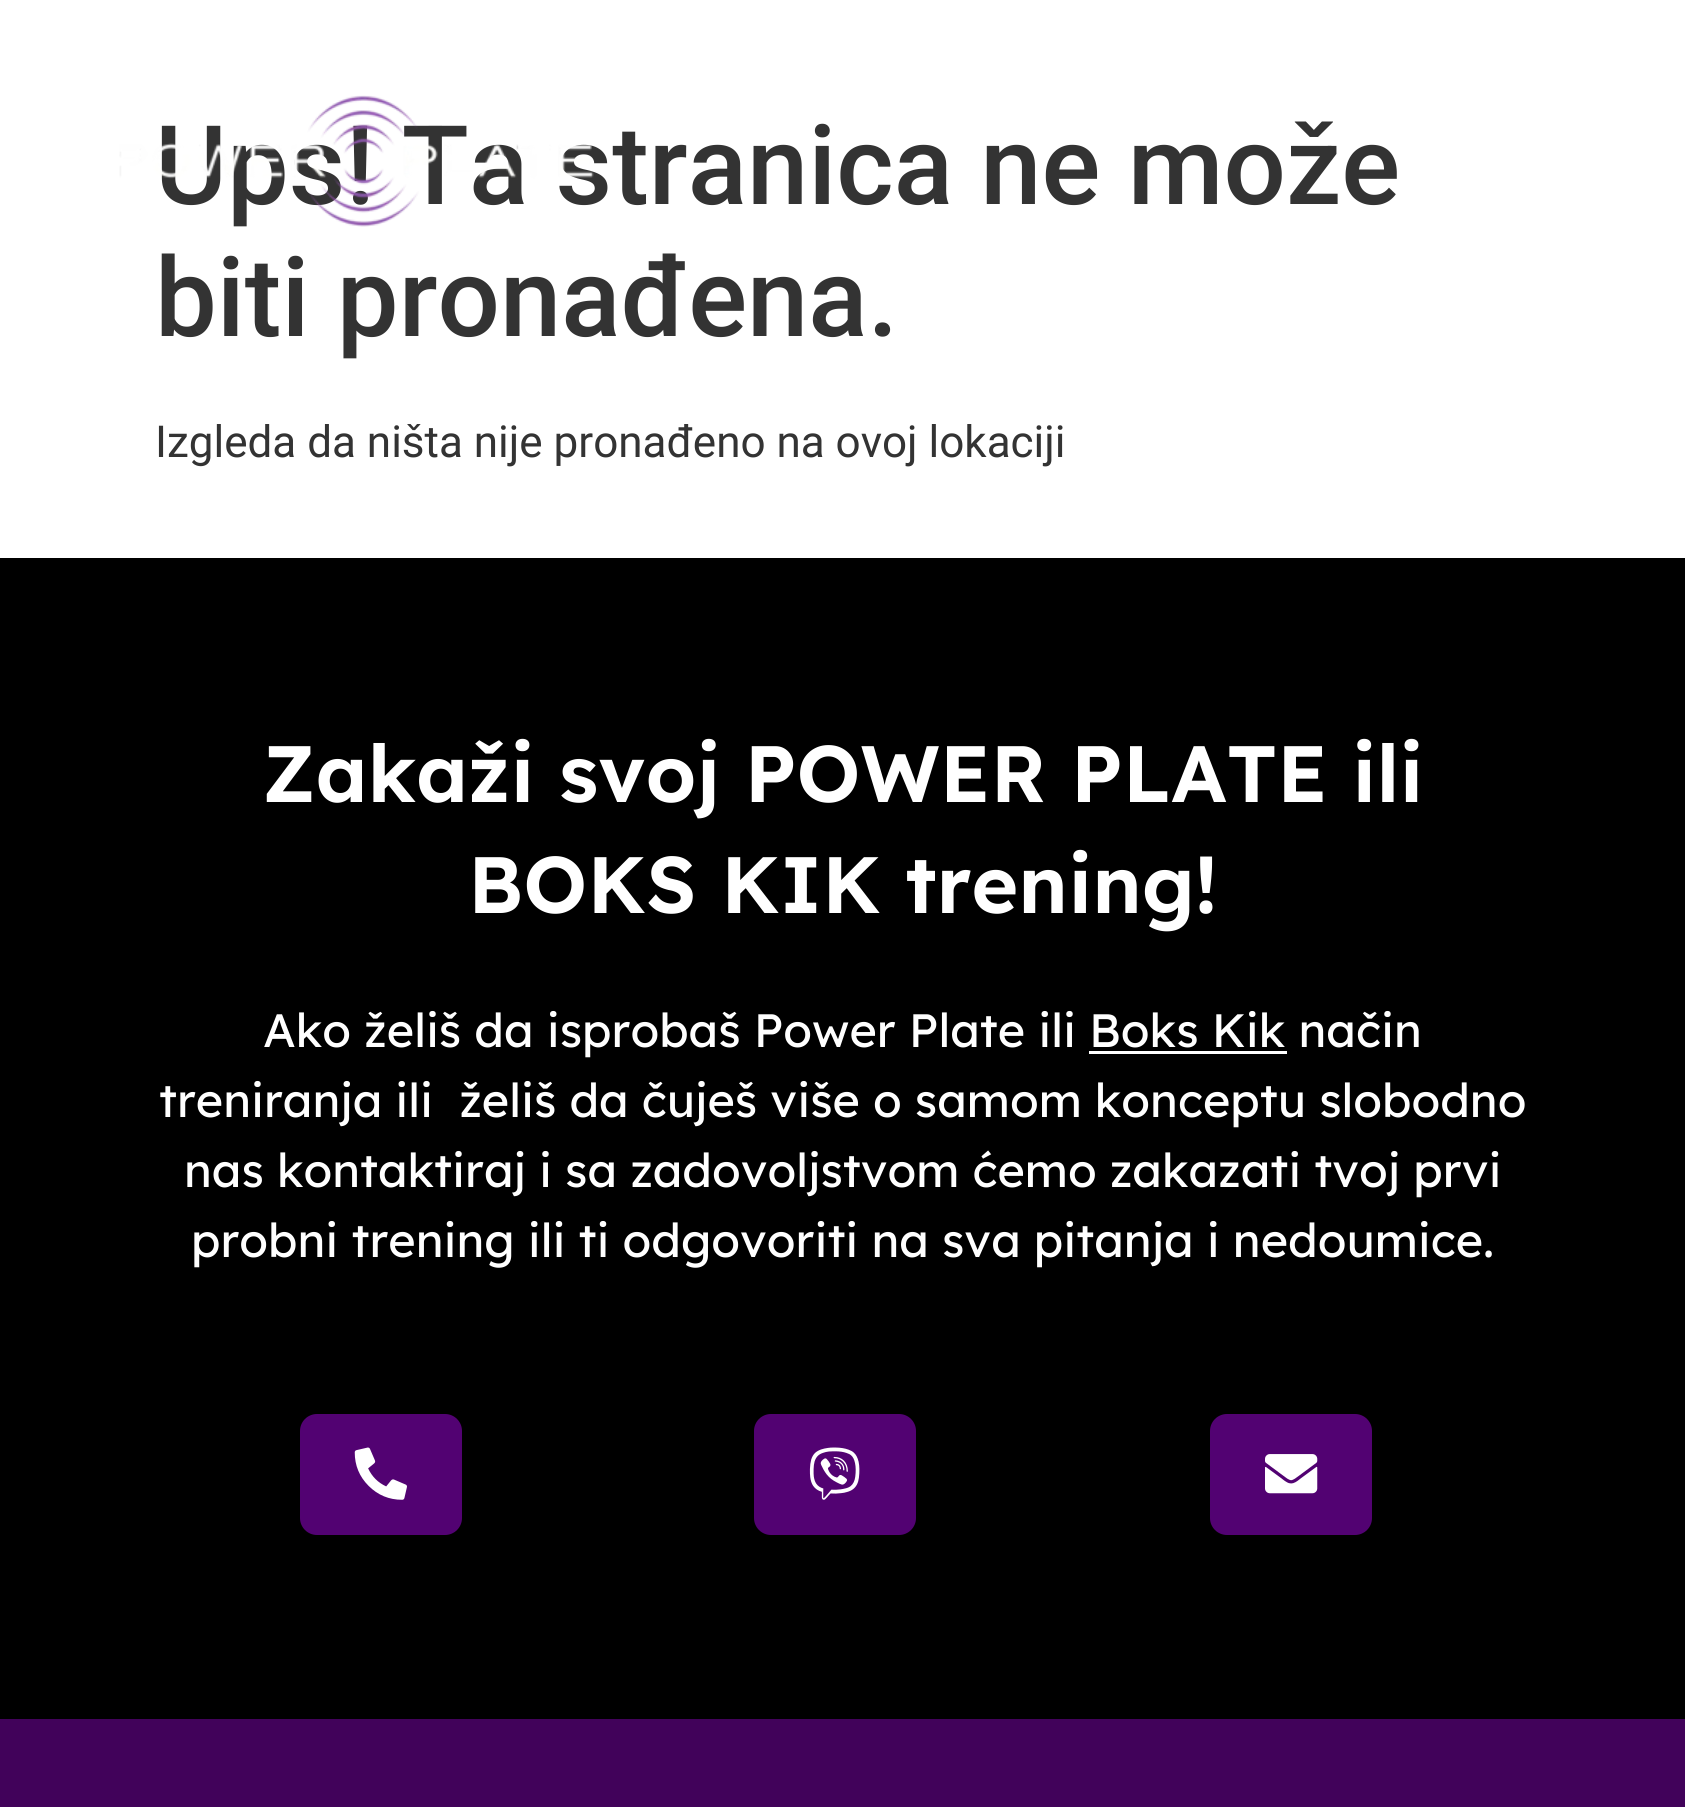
import math
import cairocffi as cairo

surface = cairo.ImageSurface(cairo.FORMAT_RGB24, 1685, 1807)
ctx = cairo.Context(surface)
options = cairo.FontOptions()
options.set_hint_metrics(cairo.HINT_METRICS_OFF)
options.set_hint_style(cairo.HINT_STYLE_NONE)
ctx.set_font_options(options)
ctx.set_miter_limit(4)


def rgb(r, g, b):
    ctx.set_source_rgb(r / 255, g / 255, b / 255)


def face(family, size, italic, bold):
    ctx.select_font_face(family, cairo.FONT_SLANT_ITALIC if italic else cairo.FONT_SLANT_NORMAL, cairo.FONT_WEIGHT_BOLD if bold else cairo.FONT_WEIGHT_NORMAL)
    ctx.set_font_size(size)


def label(x, y, s):
    ctx.move_to(x, y)
    ctx.show_text(s)


def rect(x, y, w, h):
    ctx.rectangle(x, y, w, h)
    ctx.fill()


def rrect(x, y, w, h, r):
    ctx.new_sub_path()
    for i, (u, v) in enumerate([(x + w - r, y + h - r), (x + r, y + h - r), (x + r, y + r), (x + w - r, y + r)]):
        ctx.arc(u, v, r, i * math.pi / 2, (i + 1) * math.pi / 2)
    ctx.close_path()


def image(path, x, y, w, h):
    ctx.save()
    ctx.set_source_surface(cairo.ImageSurface.create_from_png(path), x, y)
    ctx.rectangle(x, y, w, h)
    ctx.fill()
    ctx.restore()


rgb(255, 255, 255)
ctx.paint()
face('Roboto Medium', 110, 0, 0)
rgb(51, 51, 51)
label(155, 204, 'Ups! Ta stranica ne može')
image('image0.png', 119, 95, 475, 132)
label(155, 336, 'biti pronađena.')
face('Roboto', 44, 0, 0)
label(155, 457, 'Izgleda da ništa nije pronađeno na ovoj lokaciji')
rgb(0, 0, 0)
rect(0, 558, 1685, 1161)
face('Lexend SemiBold', 79.75, 0, 0)
rgb(255, 255, 255)
label(262, 802, 'Zakaži svoj POWER PLATE ili')
label(468, 913, 'BOKS KIK trening!')
face('Lexend', 46.75, 0, 0)
label(263, 1047, 'Ako želiš da isprobaš Power Plate ili Boks Kik način')
rect(1089, 1051, 198, 3)
label(159, 1117, 'treniranja ili  želiš da čuješ više o samom konceptu slobodno')
label(184, 1187, 'nas kontaktiraj i sa zadovoljstvom ćemo zakazati tvoj prvi')
label(191, 1257, 'probni trening ili ti odgovoriti na sva pitanja i nedoumice.')
rgb(82, 2, 114)
rrect(300, 1414, 162, 121, 17)
ctx.fill()
image('image1.png', 354, 1447, 53, 53)
rrect(754, 1414, 162, 121, 17)
ctx.fill()
image('image2.png', 809, 1447, 51, 53)
rrect(1210, 1414, 162, 121, 17)
ctx.fill()
image('image3.png', 1265, 1454, 53, 40)
rgb(65, 2, 90)
rect(0, 1719, 1685, 88)
surface.write_to_png('render.png')
